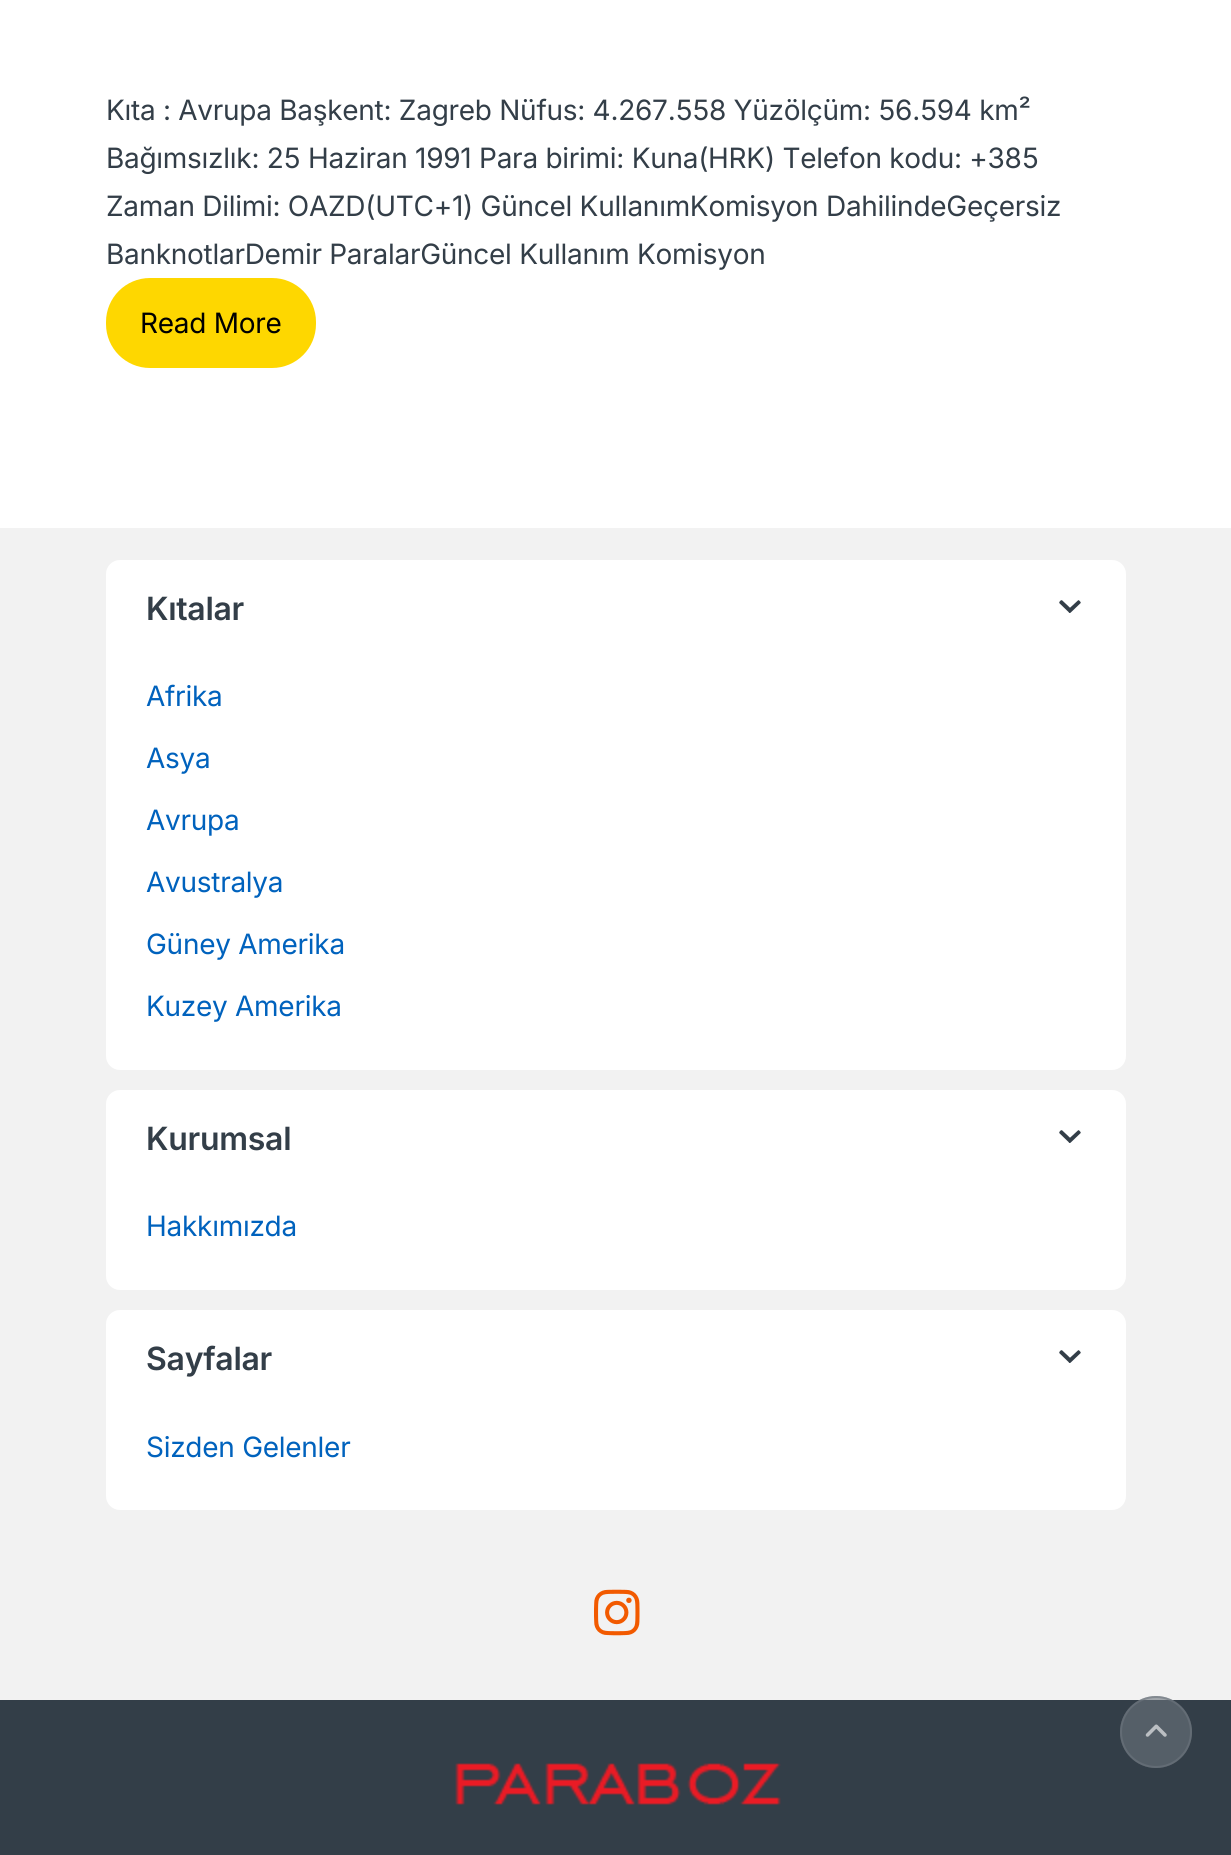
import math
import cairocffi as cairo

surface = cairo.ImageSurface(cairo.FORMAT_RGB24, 1231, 1855)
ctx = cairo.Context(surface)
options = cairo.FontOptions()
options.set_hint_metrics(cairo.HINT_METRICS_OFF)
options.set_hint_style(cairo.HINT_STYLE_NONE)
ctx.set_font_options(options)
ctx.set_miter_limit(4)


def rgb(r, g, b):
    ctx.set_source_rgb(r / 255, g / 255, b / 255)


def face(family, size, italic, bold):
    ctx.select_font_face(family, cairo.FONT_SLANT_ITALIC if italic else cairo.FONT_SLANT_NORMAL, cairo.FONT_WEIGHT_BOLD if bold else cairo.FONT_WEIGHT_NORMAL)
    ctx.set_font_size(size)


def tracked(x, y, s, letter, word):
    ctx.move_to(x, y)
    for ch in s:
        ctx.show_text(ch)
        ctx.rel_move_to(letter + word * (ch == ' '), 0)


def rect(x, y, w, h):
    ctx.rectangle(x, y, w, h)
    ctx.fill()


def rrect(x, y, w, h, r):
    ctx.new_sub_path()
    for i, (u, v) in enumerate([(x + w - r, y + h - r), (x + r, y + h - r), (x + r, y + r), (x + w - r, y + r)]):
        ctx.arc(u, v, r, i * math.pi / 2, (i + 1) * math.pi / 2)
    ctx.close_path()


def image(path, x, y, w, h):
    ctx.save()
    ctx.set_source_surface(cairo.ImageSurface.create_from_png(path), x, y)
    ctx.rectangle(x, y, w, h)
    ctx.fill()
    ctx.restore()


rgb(255, 255, 255)
ctx.paint()
face('Inter', 28, 0, 0)
rgb(51, 62, 72)
tracked(106, 120, 'Kıta : Avrupa Başkent: Zagreb Nüfus: 4.267.558 Yüzölçüm: 56.594 km²', -0.28, 0)
tracked(106, 168, 'Bağımsızlık: 25 Haziran 1991 Para birimi: Kuna(HRK) Telefon kodu: +385', -0.28, 0)
tracked(106, 216, 'Zaman Dilimi: OAZD(UTC+1) Güncel KullanımKomisyon DahilindeGeçersiz', -0.28, 0)
tracked(106, 264, 'BanknotlarDemir ParalarGüncel Kullanım Komisyon', -0.28, 0)
rgb(254, 215, 0)
rrect(107, 279, 208, 88, 43)
ctx.fill_preserve()
ctx.stroke()
rgb(0, 0, 0)
tracked(140, 333, 'Read More', -0.28, 0)
rgb(242, 242, 242)
rect(0, 528, 1231, 1172)
rgb(255, 255, 255)
rrect(106, 560, 1020, 510, 14)
ctx.fill()
face('Inter SemiBold', 32, 0, 0)
rgb(51, 62, 72)
tracked(146, 620, 'Kıtalar', -0.28, 0)
image('image0.png', 1059, 600, 22, 13)
face('Inter', 28, 0, 0)
rgb(0, 98, 189)
tracked(146, 706, 'Afrika', -0.28, 0)
tracked(146, 768, 'Asya', -0.28, 0)
tracked(146, 830, 'Avrupa', -0.28, 0)
tracked(146, 892, 'Avustralya', -0.28, 0)
tracked(146, 954, 'Güney Amerika', -0.28, 0)
tracked(146, 1016, 'Kuzey Amerika', -0.28, 0)
rgb(255, 255, 255)
rrect(106, 1090, 1020, 200, 14)
ctx.fill()
face('Inter SemiBold', 32, 0, 0)
rgb(51, 62, 72)
tracked(146, 1150, 'Kurumsal', -0.28, 0)
image('image0.png', 1059, 1130, 22, 13)
face('Inter', 28, 0, 0)
rgb(0, 98, 189)
tracked(146, 1236, 'Hakkımızda', -0.28, 0)
rgb(255, 255, 255)
rrect(106, 1310, 1020, 200, 14)
ctx.fill()
face('Inter SemiBold', 32, 0, 0)
rgb(51, 62, 72)
tracked(146, 1370, 'Sayfalar', -0.28, 0)
image('image0.png', 1059, 1350, 22, 13)
face('Inter', 28, 0, 0)
rgb(0, 98, 189)
tracked(146, 1457, 'Sizden Gelenler', -0.28, 0)
image('image1.png', 594, 1589, 46, 47)
rgb(51, 62, 72)
rect(0, 1700, 1231, 155)
image('image2.png', 455, 1763, 326, 42)
ctx.set_source_rgba(0.424, 0.459, 0.49, 0.6)
ctx.arc(1156, 1732, 36, 0, 2 * math.pi)
ctx.fill()
ctx.arc(1156, 1732, 35, 0, 2 * math.pi)
ctx.stroke()
image('image3.png', 1145, 1724, 22, 13)
surface.write_to_png('render.png')
